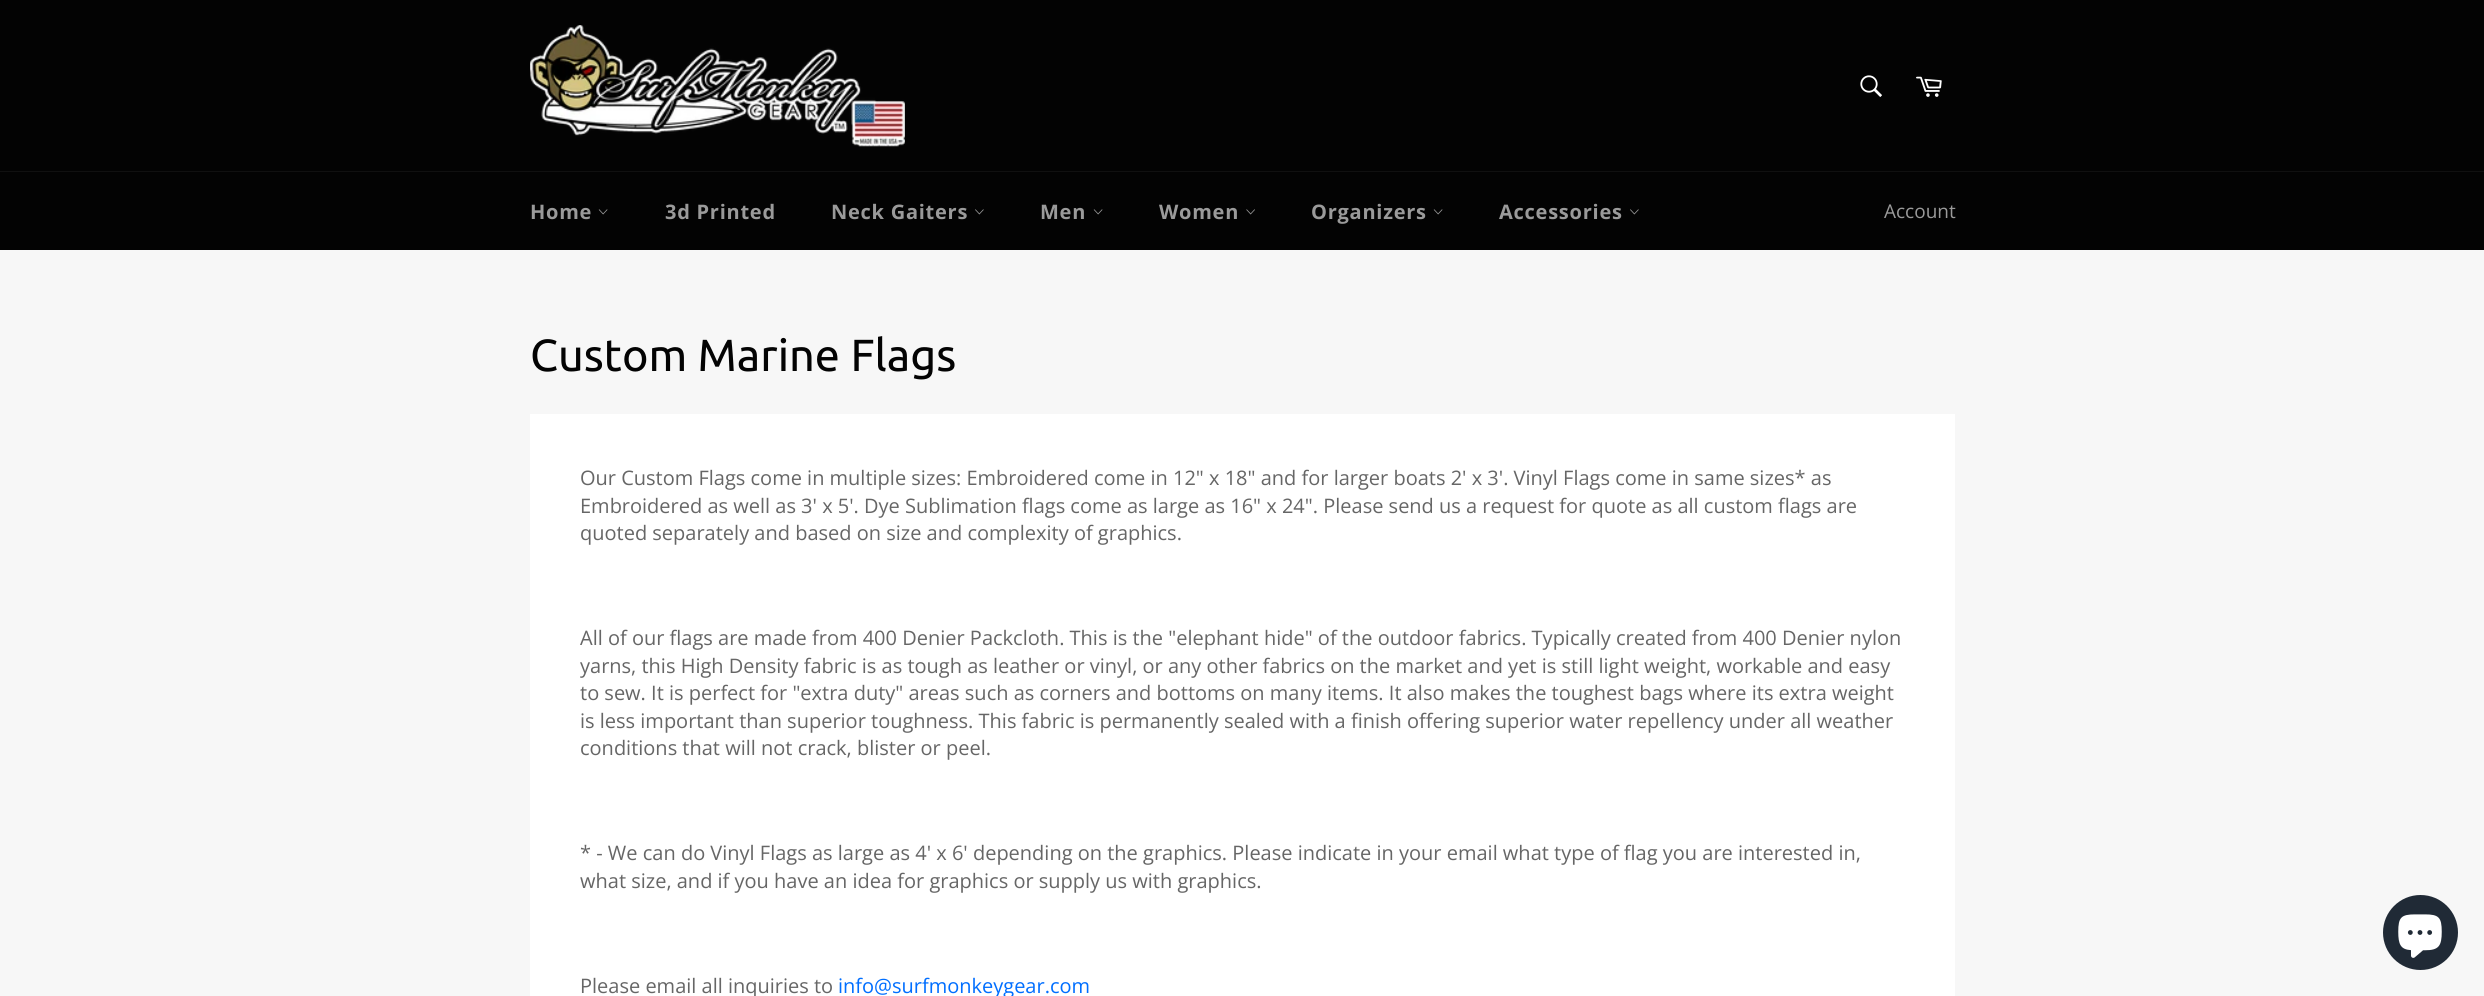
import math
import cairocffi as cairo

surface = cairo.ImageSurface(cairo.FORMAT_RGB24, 2484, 996)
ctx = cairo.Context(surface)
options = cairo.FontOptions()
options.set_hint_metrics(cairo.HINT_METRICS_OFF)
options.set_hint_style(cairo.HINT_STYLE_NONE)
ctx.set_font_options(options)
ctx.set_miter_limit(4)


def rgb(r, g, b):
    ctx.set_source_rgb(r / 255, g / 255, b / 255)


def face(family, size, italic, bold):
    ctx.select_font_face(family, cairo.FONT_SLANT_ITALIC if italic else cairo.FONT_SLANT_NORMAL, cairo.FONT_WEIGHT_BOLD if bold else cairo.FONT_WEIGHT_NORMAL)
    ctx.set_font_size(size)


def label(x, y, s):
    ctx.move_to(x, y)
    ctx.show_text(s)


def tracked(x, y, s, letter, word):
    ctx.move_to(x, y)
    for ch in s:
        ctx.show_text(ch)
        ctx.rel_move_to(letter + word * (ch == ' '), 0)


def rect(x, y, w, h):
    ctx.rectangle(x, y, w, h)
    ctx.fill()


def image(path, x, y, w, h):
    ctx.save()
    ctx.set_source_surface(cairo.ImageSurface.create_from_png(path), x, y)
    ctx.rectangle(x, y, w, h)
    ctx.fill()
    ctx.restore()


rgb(247, 247, 247)
ctx.paint()
rgb(3, 3, 3)
rect(0, 0, 2484, 171)
image('image0.png', 530, 25, 375, 122)
image('image1.png', 1860, 75, 22, 22)
image('image2.png', 1916, 76, 26, 21)
rect(0, 172, 2484, 78)
rgb(16, 16, 16)
rect(0, 171, 2484, 1)
face('Open Sans', 20, 0, 1)
rgb(154, 154, 154)
tracked(530, 219, 'Home', 0.75, 0)
image('image3.png', 598, 209, 10, 6)
tracked(665, 219, '3d Printed', 0.75, 0)
tracked(831, 219, 'Neck Gaiters', 0.75, 0)
image('image4.png', 975, 209, 9, 6)
tracked(1040, 219, 'Men', 0.75, 0)
image('image3.png', 1093, 209, 10, 6)
tracked(1159, 219, 'Women', 0.75, 0)
image('image5.png', 1246, 209, 9, 6)
tracked(1311, 219, 'Organizers', 0.75, 0)
image('image3.png', 1433, 209, 10, 6)
tracked(1499, 219, 'Accessories', 0.75, 0)
image('image4.png', 1630, 209, 9, 6)
face('Open Sans', 19, 0, 0)
label(1884, 218, 'Account')
face('Ubuntu', 45, 0, 0)
rgb(3, 3, 3)
label(530, 371, 'Custom Marine Flags')
rgb(255, 255, 255)
rect(530, 414, 1425, 582)
face('Open Sans', 20, 0, 0)
rgb(102, 102, 102)
label(580, 485, 'Our Custom Flags come in multiple sizes: Embroidered come in 12" x 18" and for larger boats 2\' x 3\'. Vinyl Flags come in same sizes* as')
label(580, 513, 'Embroidered as well as 3\' x 5\'. Dye Sublimation flags come as large as 16" x 24". Please send us a request for quote as all custom flags are')
label(580, 540, 'quoted separately and based on size and complexity of graphics.')
label(580, 645, 'All of our flags are made from 400 Denier Packcloth. This is the "elephant hide" of the outdoor fabrics. Typically created from 400 Denier nylon')
label(580, 673, 'yarns, this High Density fabric is as tough as leather or vinyl, or any other fabrics on the market and yet is still light weight, workable and easy')
label(580, 700, 'to sew. It is perfect for "extra duty" areas such as corners and bottoms on many items. It also makes the toughest bags where its extra weight')
label(580, 728, 'is less important than superior toughness. This fabric is permanently sealed with a finish offering superior water repellency under all weather')
label(580, 755, 'conditions that will not crack, blister or peel.')
label(580, 860, '* - We can do Vinyl Flags as large as 4\' x 6\' depending on the graphics. Please indicate in your email what type of flag you are interested in,')
label(580, 888, 'what size, and if you have an idea for graphics or supply us with graphics.')
label(580, 993, 'Please email all inquiries to')
rgb(0, 110, 255)
label(838, 993, 'info@surfmonkeygear.com')
rgb(32, 42, 54)
ctx.new_path()
ctx.arc(2420.5, 932.5, 37.5, 0, 2 * math.pi)
ctx.fill()
image('image6.png', 2398, 914, 44, 44)
surface.write_to_png('render.png')
